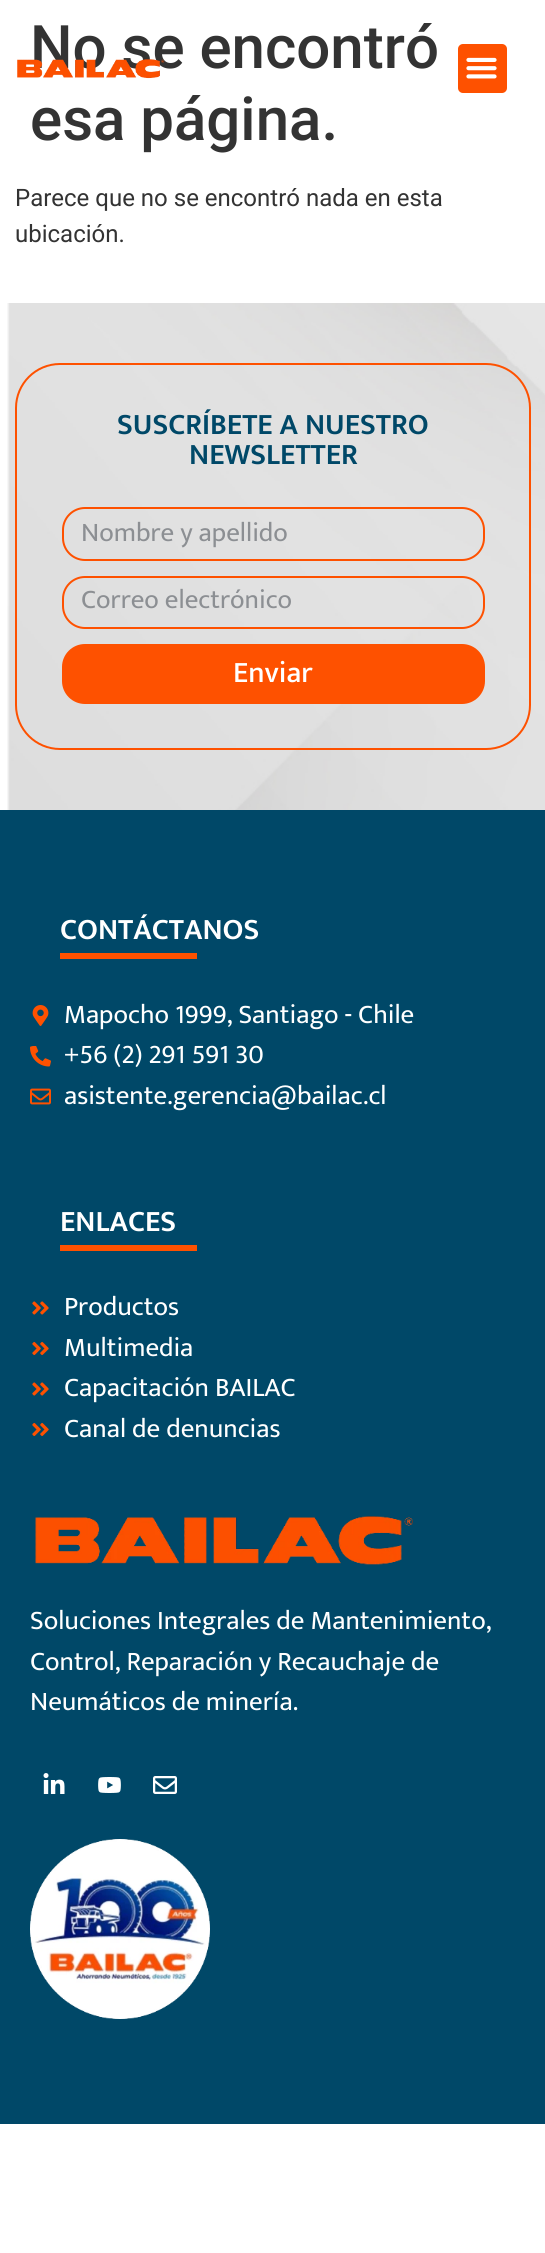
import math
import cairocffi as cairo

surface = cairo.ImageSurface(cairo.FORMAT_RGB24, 545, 2253)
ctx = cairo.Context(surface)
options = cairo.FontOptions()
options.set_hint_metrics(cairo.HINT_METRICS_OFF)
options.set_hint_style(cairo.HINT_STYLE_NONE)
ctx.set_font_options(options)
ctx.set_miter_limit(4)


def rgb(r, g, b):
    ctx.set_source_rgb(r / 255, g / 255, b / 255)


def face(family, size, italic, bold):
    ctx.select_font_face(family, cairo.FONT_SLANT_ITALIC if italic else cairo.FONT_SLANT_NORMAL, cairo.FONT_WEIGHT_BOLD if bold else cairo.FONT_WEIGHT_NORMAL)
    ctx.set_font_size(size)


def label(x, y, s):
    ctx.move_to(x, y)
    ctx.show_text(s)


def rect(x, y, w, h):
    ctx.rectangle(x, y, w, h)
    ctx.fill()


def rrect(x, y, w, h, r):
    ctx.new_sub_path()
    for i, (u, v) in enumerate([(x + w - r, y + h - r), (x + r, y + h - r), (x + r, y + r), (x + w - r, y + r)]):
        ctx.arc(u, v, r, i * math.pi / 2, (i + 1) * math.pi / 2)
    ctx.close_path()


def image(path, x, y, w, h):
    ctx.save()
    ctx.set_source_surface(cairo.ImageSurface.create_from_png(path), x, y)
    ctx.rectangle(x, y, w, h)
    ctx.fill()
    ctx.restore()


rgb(255, 255, 255)
ctx.paint()
face('Roboto Medium', 60, 0, 0)
rgb(51, 51, 51)
label(30, 68, 'No se encontró')
label(30, 140, 'esa página.')
face('Roboto', 24, 0, 0)
label(15, 206, 'Parece que no se encontró nada en esta')
label(15, 242, 'ubicación.')
image('image0.png', 17, 59, 148, 20)
rgb(254, 81, 0)
rrect(458, 44, 49, 49, 5)
ctx.fill()
image('image1.png', 466, 57, 31, 22)
image('image2.png', 0, 303, 545, 507)
rrect(16, 364, 514, 385, 44)
ctx.stroke()
face('Mukta SemiBold', 30, 0, 0)
rgb(0, 72, 104)
label(117, 434, 'SUSCRÍBETE A NUESTRO')
label(189, 464, 'NEWSLETTER')
rrect(63, 508, 421, 52, 22)
rgb(254, 81, 0)
ctx.stroke()
face('Mukta', 27, 0, 0)
rgb(140, 143, 147)
label(81, 541, 'Nombre y apellido')
rrect(63, 577, 421, 51, 22)
rgb(254, 81, 0)
ctx.stroke()
rgb(140, 143, 147)
label(81, 608, 'Correo electrónico')
rgb(254, 81, 0)
rrect(62, 644, 423, 60, 23)
ctx.fill()
face('Mukta Medium', 30, 0, 0)
rgb(255, 255, 255)
label(233, 682, 'Enviar')
rgb(0, 72, 104)
rect(0, 810, 545, 1314)
face('Mukta SemiBold', 30, 0, 0)
rgb(255, 255, 255)
label(60, 939, 'CONTÁCTANOS')
rgb(254, 81, 0)
rect(60, 953, 137, 6)
image('image3.png', 32, 1005, 17, 21)
face('Mukta', 27, 0, 0)
rgb(255, 255, 255)
label(64, 1023, 'Mapocho 1999, Santiago - Chile')
image('image4.png', 30, 1046, 21, 21)
label(64, 1063, '+56 (2) 291 591 30')
image('image5.png', 30, 1088, 21, 17)
label(64, 1104, 'asistente.gerencia@bailac.cl')
face('Mukta SemiBold', 30, 0, 0)
label(60, 1231, 'ENLACES')
rgb(254, 81, 0)
rect(60, 1245, 137, 6)
image('image6.png', 32, 1301, 17, 14)
face('Mukta', 27, 0, 0)
rgb(255, 255, 255)
label(64, 1315, 'Productos')
image('image7.png', 32, 1341, 17, 14)
label(64, 1356, 'Multimedia')
image('image6.png', 32, 1382, 17, 14)
label(64, 1396, 'Capacitación BAILAC')
image('image7.png', 32, 1422, 17, 14)
label(64, 1437, 'Canal de denuncias')
image('image8.png', 35, 1516, 378, 49)
label(30, 1629, 'Soluciones Integrales de Mantenimiento,')
label(30, 1670, 'Control, Reparación y Recauchaje de')
label(30, 1710, 'Neumáticos de minería.')
image('image9.png', 43, 1773, 22, 21)
image('image10.png', 98, 1777, 23, 16)
image('image11.png', 153, 1776, 24, 18)
image('image12.png', 30, 1839, 180, 180)
surface.write_to_png('render.png')
